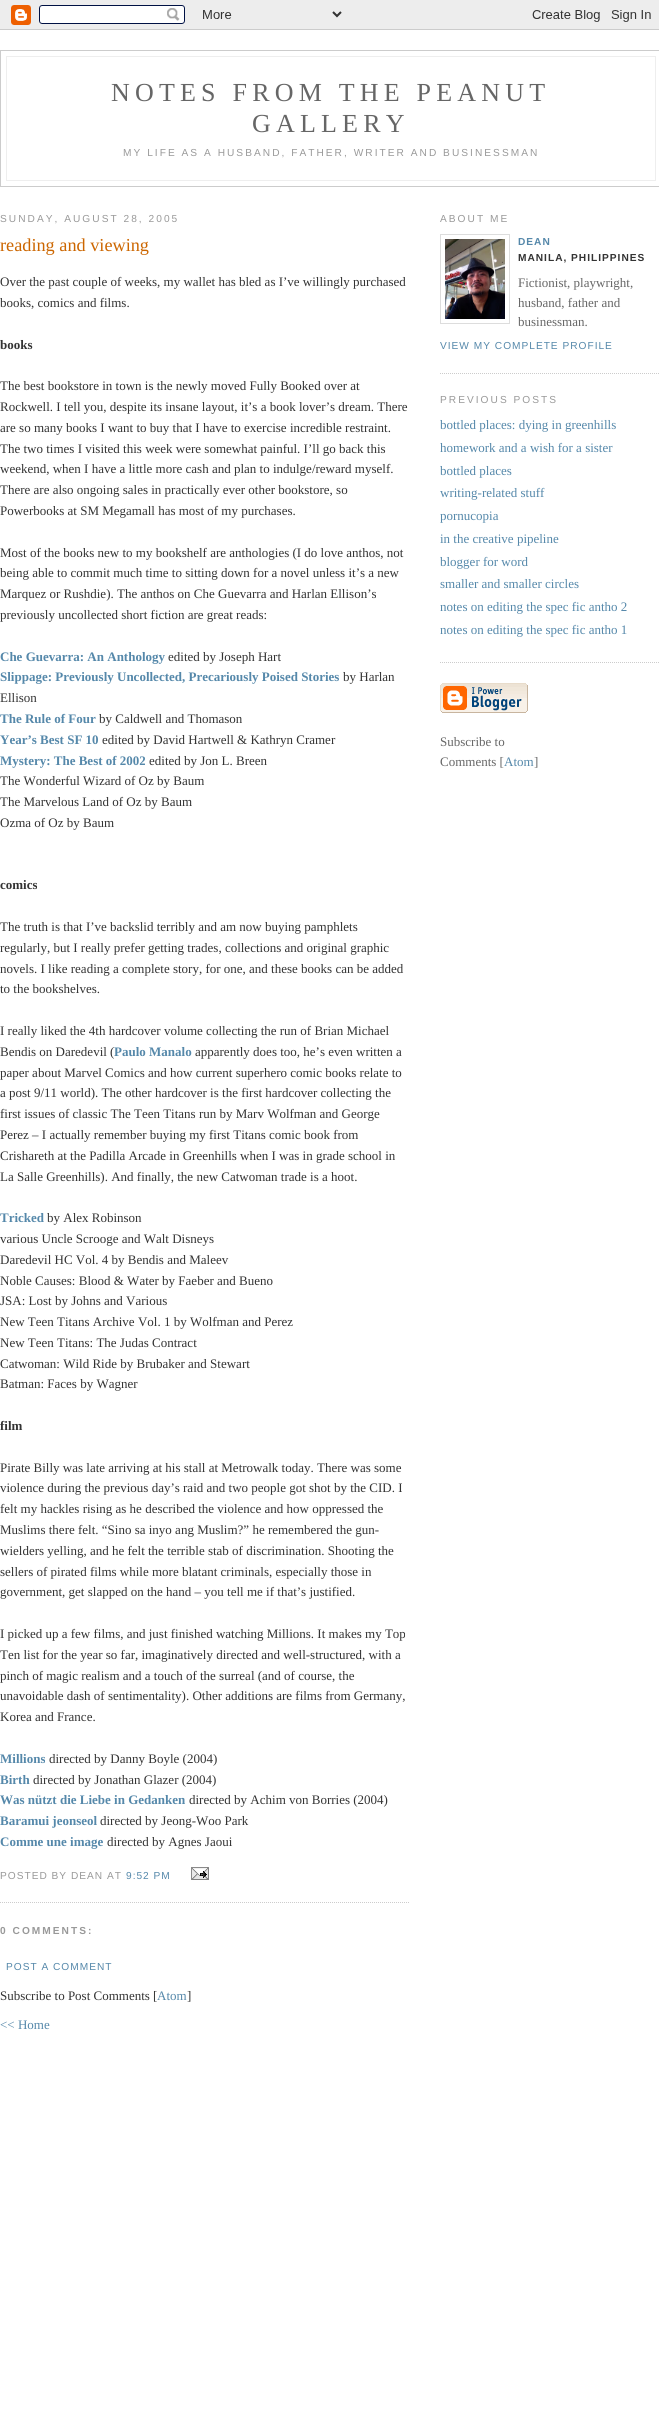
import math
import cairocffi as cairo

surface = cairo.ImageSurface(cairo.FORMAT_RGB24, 659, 2433)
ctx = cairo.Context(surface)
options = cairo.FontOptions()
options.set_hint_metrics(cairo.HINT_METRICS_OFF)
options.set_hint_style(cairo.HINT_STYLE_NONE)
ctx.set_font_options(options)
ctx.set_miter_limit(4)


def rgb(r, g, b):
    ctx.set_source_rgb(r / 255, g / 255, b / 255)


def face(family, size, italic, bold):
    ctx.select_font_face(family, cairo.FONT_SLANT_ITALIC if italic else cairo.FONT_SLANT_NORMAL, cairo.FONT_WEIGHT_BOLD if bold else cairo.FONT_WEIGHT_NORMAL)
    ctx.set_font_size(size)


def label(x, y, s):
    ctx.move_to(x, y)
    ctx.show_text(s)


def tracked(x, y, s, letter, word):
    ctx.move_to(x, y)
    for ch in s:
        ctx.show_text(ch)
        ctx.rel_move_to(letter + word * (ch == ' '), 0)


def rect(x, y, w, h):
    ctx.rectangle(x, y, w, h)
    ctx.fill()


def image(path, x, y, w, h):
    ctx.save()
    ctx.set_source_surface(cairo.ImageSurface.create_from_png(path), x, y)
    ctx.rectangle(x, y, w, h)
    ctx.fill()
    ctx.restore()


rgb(255, 255, 255)
ctx.paint()
image('image0.png', 0, 0, 659, 30)
ctx.rectangle(0.5, 50.5, 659, 136)
rgb(204, 204, 204)
ctx.set_line_width(1)
ctx.stroke()
rgb(238, 238, 238)
rect(6, 56, 650, 1)
rect(655, 56, 1, 125)
rect(6, 56, 1, 90)
face('Liberation Serif', 26, 0, 0)
rgb(102, 102, 102)
tracked(111, 101, 'NOTES FROM THE PEANUT', 5.2, 0)
tracked(252, 132, 'GALLERY', 5.2, 0)
rgb(238, 238, 238)
rect(6, 180, 650, 1)
rect(6, 146, 1, 35)
face('Liberation Sans', 10.15, 0, 0)
rgb(153, 153, 153)
tracked(123, 156, 'MY LIFE AS A HUSBAND, FATHER, WRITER AND BUSINESSMAN', 2.03, 0)
tracked(0, 222, 'SUNDAY, AUGUST 28, 2005', 2.03, 0)
ctx.new_path()
ctx.move_to(0, 1902.5)
ctx.line_to(410, 1902.5)
rgb(204, 204, 204)
ctx.set_dash([1, 1])
ctx.stroke()
face('Liberation Serif', 18.25, 0, 0)
rgb(204, 102, 0)
label(0, 251, 'reading and viewing')
face('Liberation Serif', 13, 0, 0)
rgb(51, 51, 51)
label(0, 286, 'Over the past couple of weeks, my wallet has bled as I’ve willingly purchased')
label(0, 307, 'books, comics and films.')
face('Liberation Serif', 13, 0, 1)
label(0, 349, 'books')
face('Liberation Serif', 13, 0, 0)
label(0, 390, 'The best bookstore in town is the newly moved Fully Booked over at')
label(0, 411, 'Rockwell. I tell you, despite its insane layout, it’s a book lover’s dream. There')
label(0, 432, 'are so many books I want to buy that I have to exercise incredible restraint.')
label(0, 453, 'The two times I visited this week were somewhat painful. I’ll go back this')
label(0, 473, 'weekend, when I have a little more cash and plan to indulge/reward myself.')
label(0, 494, 'There are also ongoing sales in practically ever other bookstore, so')
label(0, 515, 'Powerbooks at SM Megamall has most of my purchases.')
label(0, 557, 'Most of the books new to my bookshelf are anthologies (I do love anthos, not')
label(0, 577, 'being able to commit much time to sitting down for a novel unless it’s a new')
label(0, 598, 'Marquez or Rushdie). The anthos on Che Guevarra and Harlan Ellison’s')
label(0, 619, 'previously uncollected short fiction are great reads:')
face('Liberation Serif', 13, 0, 1)
rgb(85, 136, 170)
label(0, 661, 'Che Guevarra: An Anthology')
face('Liberation Serif', 13, 0, 0)
rgb(51, 51, 51)
label(168, 661, 'edited by Joseph Hart')
face('Liberation Serif', 13, 0, 1)
rgb(85, 136, 170)
label(0, 681, 'Slippage: Previously Uncollected, Precariously Poised Stories')
face('Liberation Serif', 13, 0, 0)
rgb(51, 51, 51)
label(343, 681, 'by Harlan')
label(0, 702, 'Ellison')
face('Liberation Serif', 13, 0, 1)
rgb(85, 136, 170)
label(0, 723, 'The Rule of Four')
face('Liberation Serif', 13, 0, 0)
rgb(51, 51, 51)
label(99, 723, 'by Caldwell and Thomason')
face('Liberation Serif', 13, 0, 1)
rgb(85, 136, 170)
label(0, 744, 'Year’s Best SF 10')
face('Liberation Serif', 13, 0, 0)
rgb(51, 51, 51)
label(102, 744, 'edited by David Hartwell & Kathryn Cramer')
face('Liberation Serif', 13, 0, 1)
rgb(85, 136, 170)
label(0, 765, 'Mystery: The Best of 2002')
face('Liberation Serif', 13, 0, 0)
rgb(51, 51, 51)
label(149, 765, 'edited by Jon L. Breen')
label(0, 785, 'The Wonderful Wizard of Oz by Baum')
label(0, 806, 'The Marvelous Land of Oz by Baum')
label(0, 827, 'Ozma of Oz by Baum')
face('Liberation Serif', 13, 0, 1)
label(0, 889, 'comics')
face('Liberation Serif', 13, 0, 0)
label(0, 931, 'The truth is that I’ve backslid terribly and am now buying pamphlets')
label(0, 952, 'regularly, but I really prefer getting trades, collections and original graphic')
label(0, 973, 'novels. I like reading a complete story, for one, and these books can be added')
label(0, 993, 'to the bookshelves.')
label(0, 1035, 'I really liked the 4th hardcover volume collecting the run of Brian Michael')
label(0, 1056, 'Bendis on Daredevil (')
face('Liberation Serif', 13, 0, 1)
rgb(85, 136, 170)
label(114, 1056, 'Paulo Manalo')
face('Liberation Serif', 13, 0, 0)
rgb(51, 51, 51)
label(195, 1056, 'apparently does too, he’s even written a')
label(0, 1077, 'paper about Marvel Comics and how current superhero comic books relate to')
label(0, 1097, 'a post 9/11 world). The other hardcover is the first hardcover collecting the')
label(0, 1118, 'first issues of classic The Teen Titans run by Marv Wolfman and George')
label(0, 1139, 'Perez – I actually remember buying my first Titans comic book from')
label(0, 1160, 'Crishareth at the Padilla Arcade in Greenhills when I was in grade school in')
label(0, 1181, 'La Salle Greenhills). And finally, the new Catwoman trade is a hoot.')
face('Liberation Serif', 13, 0, 1)
rgb(85, 136, 170)
label(0, 1222, 'Tricked')
face('Liberation Serif', 13, 0, 0)
rgb(51, 51, 51)
label(47, 1222, 'by Alex Robinson')
label(0, 1243, 'various Uncle Scrooge and Walt Disneys')
label(0, 1264, 'Daredevil HC Vol. 4 by Bendis and Maleev')
label(0, 1285, 'Noble Causes: Blood & Water by Faeber and Bueno')
label(0, 1305, 'JSA: Lost by Johns and Various')
label(0, 1326, 'New Teen Titans Archive Vol. 1 by Wolfman and Perez')
label(0, 1347, 'New Teen Titans: The Judas Contract')
label(0, 1368, 'Catwoman: Wild Ride by Brubaker and Stewart')
label(0, 1388, 'Batman: Faces by Wagner')
face('Liberation Serif', 13, 0, 1)
label(0, 1430, 'film')
face('Liberation Serif', 13, 0, 0)
label(0, 1472, 'Pirate Billy was late arriving at his stall at Metrowalk today. There was some')
label(0, 1492, 'violence during the previous day’s raid and two people got shot by the CID. I')
label(0, 1513, 'felt my hackles rising as he described the violence and how oppressed the')
label(0, 1534, 'Muslims there felt. “Sino sa inyo ang Muslim?” he remembered the gun-')
label(0, 1555, 'wielders yelling, and he felt the terrible stab of discrimination. Shooting the')
label(0, 1576, 'sellers of pirated films while more blatant criminals, especially those in')
label(0, 1596, 'government, get slapped on the hand – you tell me if that’s justified.')
label(0, 1638, 'I picked up a few films, and just finished watching Millions. It makes my Top')
label(0, 1659, 'Ten list for the year so far, imaginatively directed and well-structured, with a')
label(0, 1680, 'pinch of magic realism and a touch of the surreal (and of course, the')
label(0, 1700, 'unavoidable dash of sentimentality). Other additions are films from Germany,')
label(0, 1721, 'Korea and France.')
face('Liberation Serif', 13, 0, 1)
rgb(85, 136, 170)
label(0, 1763, 'Millions')
face('Liberation Serif', 13, 0, 0)
rgb(51, 51, 51)
label(49, 1763, 'directed by Danny Boyle (2004)')
face('Liberation Serif', 13, 0, 1)
rgb(85, 136, 170)
label(0, 1784, 'Birth')
face('Liberation Serif', 13, 0, 0)
rgb(51, 51, 51)
label(33, 1784, 'directed by Jonathan Glazer (2004)')
face('Liberation Serif', 13, 0, 1)
rgb(85, 136, 170)
label(0, 1804, 'Was nützt die Liebe in Gedanken')
face('Liberation Serif', 13, 0, 0)
rgb(51, 51, 51)
label(189, 1804, 'directed by Achim von Borries (2004)')
face('Liberation Serif', 13, 0, 1)
rgb(85, 136, 170)
label(0, 1825, 'Baramui jeonseol')
face('Liberation Serif', 13, 0, 0)
rgb(51, 51, 51)
label(100, 1825, 'directed by Jeong-Woo Park')
face('Liberation Serif', 13, 0, 1)
rgb(85, 136, 170)
label(0, 1846, 'Comme une image')
face('Liberation Serif', 13, 0, 0)
rgb(51, 51, 51)
label(107, 1846, 'directed by Agnes Jaoui')
face('Liberation Sans', 10.15, 0, 0)
rgb(153, 153, 153)
tracked(0, 1879, 'POSTED BY DEAN AT', 1, 0)
rgb(85, 136, 170)
tracked(126, 1879, '9:52 PM', 1, 0)
image('image1.png', 191, 1867, 18, 13)
face('Liberation Sans', 10.15, 0, 1)
rgb(153, 153, 153)
tracked(0, 1934, '0 COMMENTS:', 2.03, 0)
face('Liberation Sans', 10.15, 0, 0)
rgb(85, 136, 170)
tracked(6, 1970, 'POST A COMMENT', 1, 0)
face('Liberation Serif', 13, 0, 0)
rgb(51, 51, 51)
label(0, 2000, 'Subscribe to Post Comments [')
rgb(85, 136, 170)
label(157, 2000, 'Atom')
rgb(51, 51, 51)
label(187, 2000, ']')
rgb(85, 136, 170)
label(0, 2029, '<< Home')
ctx.new_path()
ctx.move_to(440, 373.5)
ctx.line_to(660, 373.5)
rgb(204, 204, 204)
ctx.stroke()
face('Liberation Sans', 10.15, 0, 0)
rgb(153, 153, 153)
tracked(440, 222, 'ABOUT ME', 2.03, 0)
ctx.rectangle(440.5, 234.5, 69, 89)
rgb(221, 221, 221)
ctx.set_dash([])
ctx.stroke()
image('image2.png', 445, 239, 60, 80)
face('Liberation Sans', 10.15, 0, 1)
rgb(85, 136, 170)
tracked(518, 245, 'DEAN', 1, 0)
rgb(51, 51, 51)
tracked(518, 261, 'MANILA, PHILIPPINES', 1, 0)
face('Liberation Serif', 13, 0, 0)
rgb(102, 102, 102)
label(518, 287, 'Fictionist, playwright,')
label(518, 307, 'husband, father and')
label(518, 326, 'businessman.')
face('Liberation Sans', 10.15, 0, 0)
rgb(85, 136, 170)
tracked(440, 349, 'VIEW MY COMPLETE PROFILE', 1, 0)
rgb(153, 153, 153)
tracked(440, 403, 'PREVIOUS POSTS', 2.03, 0)
ctx.new_path()
ctx.move_to(440, 662.5)
ctx.line_to(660, 662.5)
rgb(204, 204, 204)
ctx.set_dash([1, 1])
ctx.stroke()
face('Liberation Serif', 13, 0, 0)
rgb(85, 136, 170)
label(440, 429, 'bottled places: dying in greenhills')
label(440, 452, 'homework and a wish for a sister')
label(440, 475, 'bottled places')
label(440, 497, 'writing-related stuff')
label(440, 520, 'pornucopia')
label(440, 543, 'in the creative pipeline')
label(440, 566, 'blogger for word')
label(440, 588, 'smaller and smaller circles')
label(440, 611, 'notes on editing the spec fic antho 2')
label(440, 634, 'notes on editing the spec fic antho 1')
image('image3.png', 440, 683, 88, 30)
rgb(102, 102, 102)
label(440, 746, 'Subscribe to')
label(440, 766, 'Comments [')
rgb(85, 136, 170)
label(504, 766, 'Atom')
rgb(102, 102, 102)
label(534, 766, ']')
surface.write_to_png('render.png')
